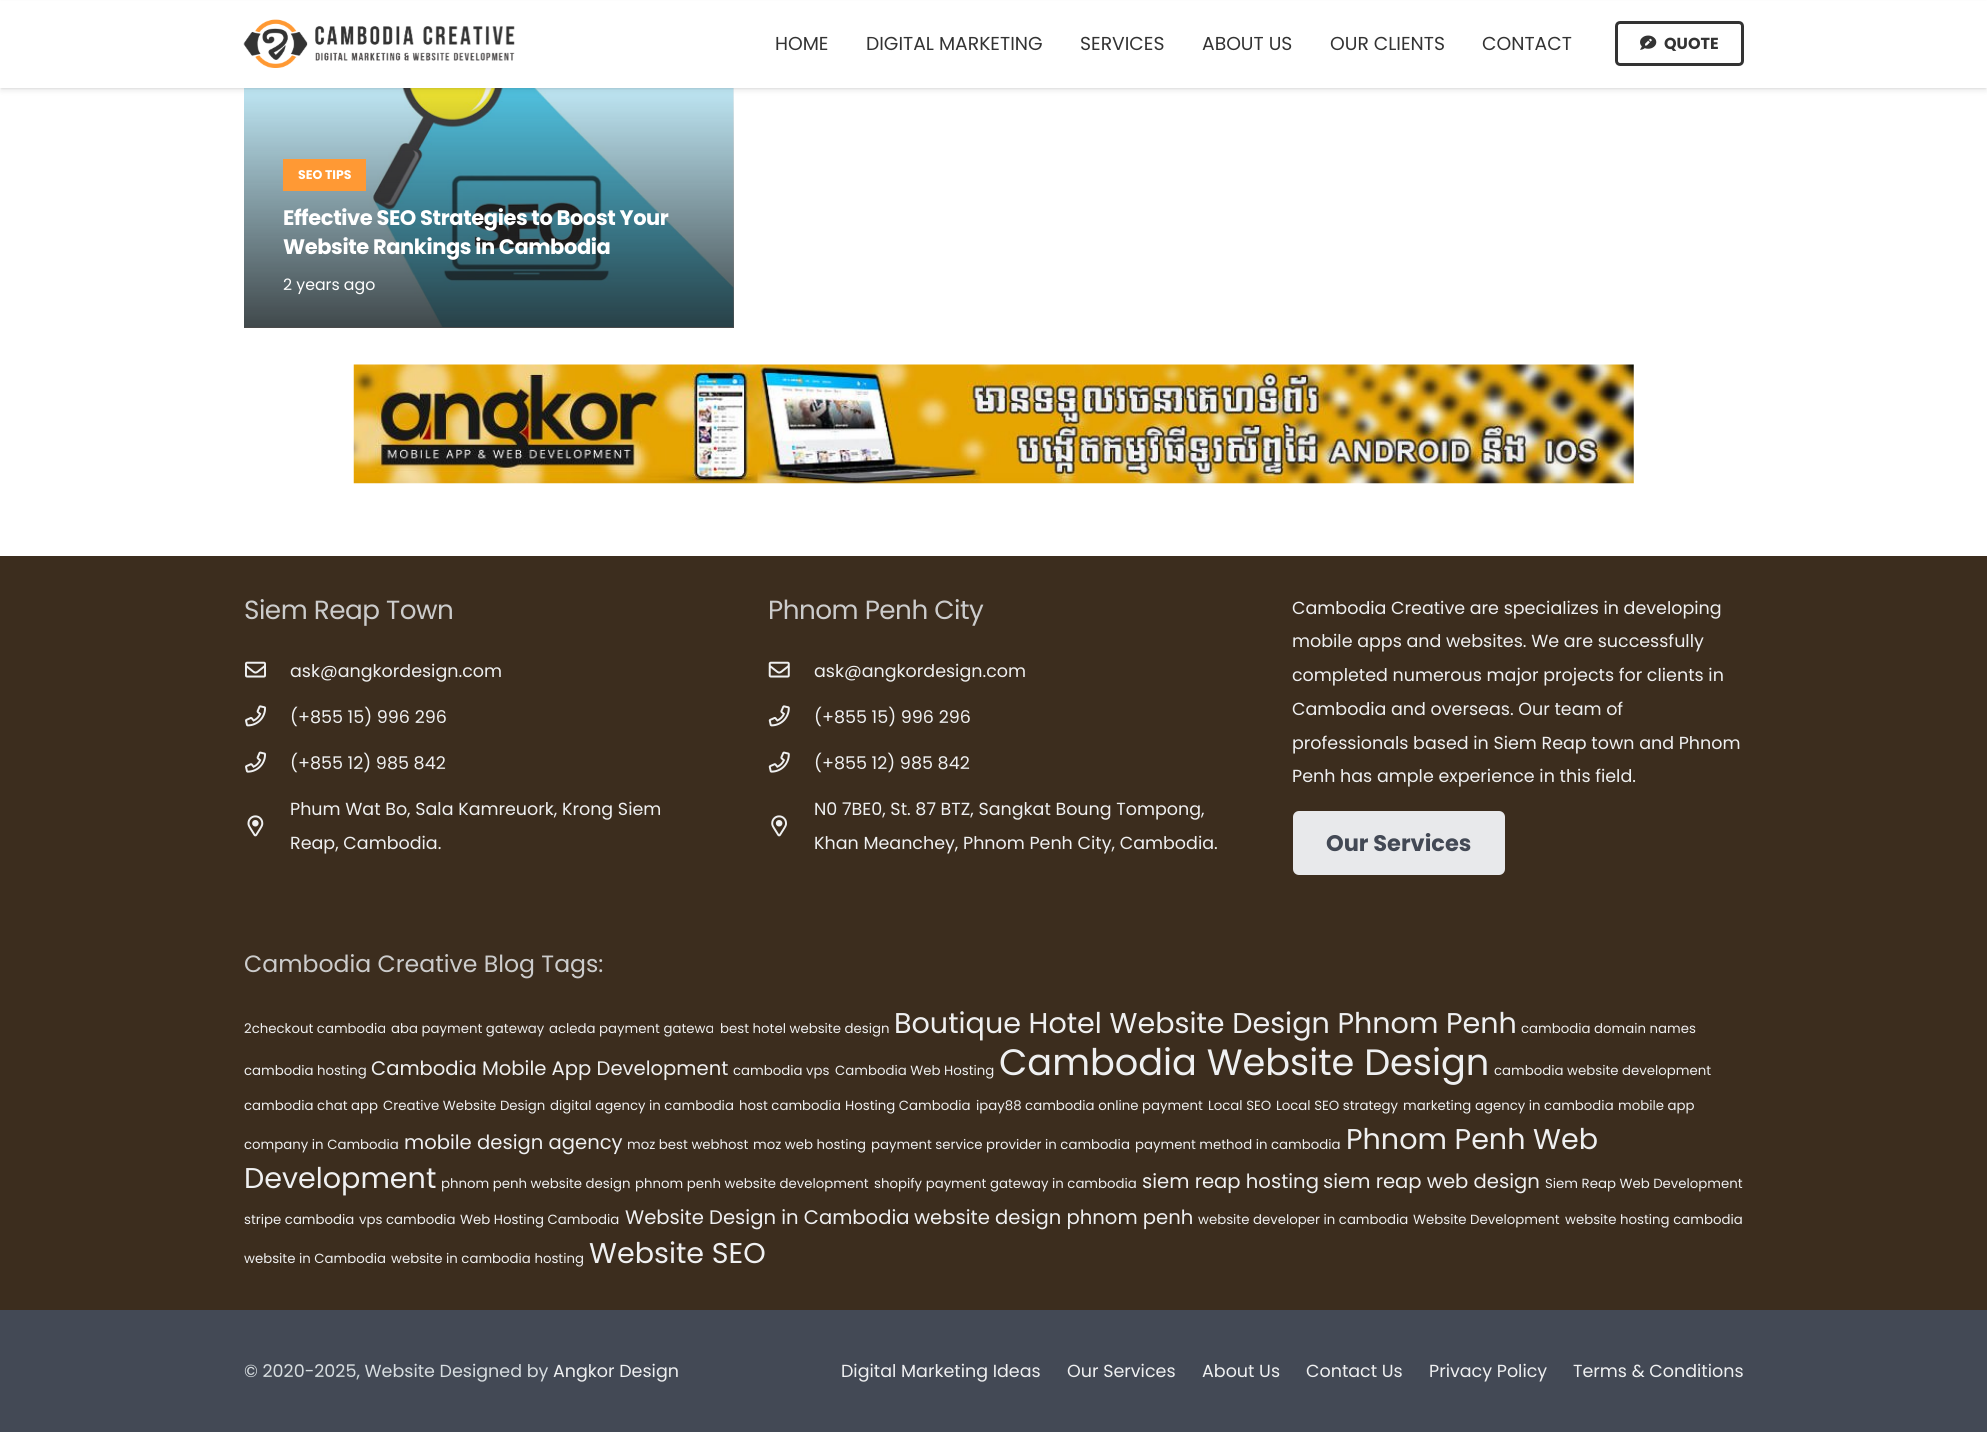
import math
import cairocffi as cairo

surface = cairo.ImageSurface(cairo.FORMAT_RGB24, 1987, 1432)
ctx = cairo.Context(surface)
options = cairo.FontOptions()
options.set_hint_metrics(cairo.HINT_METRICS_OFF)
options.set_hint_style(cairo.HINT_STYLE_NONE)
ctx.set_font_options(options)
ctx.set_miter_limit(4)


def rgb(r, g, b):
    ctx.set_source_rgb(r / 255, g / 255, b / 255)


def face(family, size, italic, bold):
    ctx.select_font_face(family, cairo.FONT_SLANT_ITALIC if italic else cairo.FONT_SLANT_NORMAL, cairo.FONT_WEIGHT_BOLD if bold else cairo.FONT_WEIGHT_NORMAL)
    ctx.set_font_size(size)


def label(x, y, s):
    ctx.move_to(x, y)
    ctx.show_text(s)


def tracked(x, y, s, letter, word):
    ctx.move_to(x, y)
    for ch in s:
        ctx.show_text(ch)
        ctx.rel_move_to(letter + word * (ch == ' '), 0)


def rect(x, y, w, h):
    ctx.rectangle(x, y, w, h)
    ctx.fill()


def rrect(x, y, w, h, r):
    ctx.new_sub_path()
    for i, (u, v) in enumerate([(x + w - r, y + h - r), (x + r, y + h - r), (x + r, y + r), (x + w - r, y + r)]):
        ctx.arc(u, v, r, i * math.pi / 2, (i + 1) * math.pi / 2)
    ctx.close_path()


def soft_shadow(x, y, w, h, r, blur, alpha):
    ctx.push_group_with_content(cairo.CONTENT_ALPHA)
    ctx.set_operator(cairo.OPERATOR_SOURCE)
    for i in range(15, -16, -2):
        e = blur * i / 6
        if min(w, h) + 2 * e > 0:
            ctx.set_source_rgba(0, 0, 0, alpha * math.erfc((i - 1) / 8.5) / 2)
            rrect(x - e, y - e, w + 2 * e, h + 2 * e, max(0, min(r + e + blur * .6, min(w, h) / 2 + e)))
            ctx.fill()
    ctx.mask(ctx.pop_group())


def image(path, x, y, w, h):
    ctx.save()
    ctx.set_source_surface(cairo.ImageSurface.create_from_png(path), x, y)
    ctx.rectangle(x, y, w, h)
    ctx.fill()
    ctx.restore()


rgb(255, 255, 255)
ctx.paint()
image('image2.png', 244, 88, 490, 239)
gradient = cairo.LinearGradient(489, 71, 489, 328)
gradient.add_color_stop_rgba(0, 0.118, 0.118, 0.118, 0)
gradient.add_color_stop_rgba(1, 0.118, 0.118, 0.118, 0.8)
ctx.set_source(gradient)
rect(244, 88, 490, 240)
rgb(0, 0, 0)
soft_shadow(1, 4, 1985, 85, 0, 0.5, 0.05)
soft_shadow(1, 5, 1985, 85, 0, 3, 0.1)
rgb(255, 255, 255)
rect(0, 1, 1987, 87)
image('image0.png', 243, 19, 272, 49)
face('Poppins', 18.75, 0, 0)
rgb(51, 51, 51)
label(775, 50, 'HOME')
label(866, 50, 'DIGITAL MARKETING')
label(1080, 50, 'SERVICES')
label(1202, 50, 'ABOUT US')
label(1330, 50, 'OUR CLIENTS')
label(1482, 50, 'CONTACT')
image('image1.png', 1640, 35, 17, 15)
rrect(1616.5, 22.5, 126, 42, 3.5)
ctx.set_line_width(3)
ctx.stroke()
face('Poppins', 16, 0, 1)
label(1664, 49, 'QUOTE')
rgb(255, 153, 52)
rect(283, 159, 83, 32)
face('Poppins', 12.5, 0, 1)
rgb(255, 255, 255)
label(298, 179, 'SEO TIPS')
face('Poppins', 21, 0, 1)
tracked(283, 225, 'Effective SEO Strategies to Boost Your', -0.4, 0)
tracked(283, 254, 'Website Rankings in Cambodia', -0.4, 0)
face('Poppins', 15.75, 0, 0)
label(283, 290, '2 years ago')
image('image3.png', 353, 364, 1281, 120)
rgb(60, 45, 30)
rect(0, 556, 1987, 754)
face('Poppins', 26.25, 0, 0)
rgb(204, 204, 204)
tracked(244, 619, 'Siem Reap Town', -0.5, 0)
image('image4.png', 245, 661, 21, 17)
face('Poppins', 17.5, 0, 0)
rgb(239, 240, 241)
label(290, 677, 'ask@angkordesign.com')
image('image5.png', 245, 705, 21, 22)
label(290, 723, '(+855 15) 996 296')
image('image6.png', 245, 751, 21, 22)
label(290, 769, '(+855 12) 985 842')
image('image7.png', 247, 815, 17, 22)
label(290, 815, 'Phum Wat Bo, Sala Kamreuork, Krong Siem')
label(290, 849, 'Reap, Cambodia.')
face('Poppins', 26.25, 0, 0)
rgb(204, 204, 204)
tracked(768, 619, 'Phnom Penh City', -0.5, 0)
image('image8.png', 768, 661, 22, 17)
face('Poppins', 17.5, 0, 0)
rgb(239, 240, 241)
label(814, 677, 'ask@angkordesign.com')
image('image9.png', 768, 705, 22, 22)
label(814, 723, '(+855 15) 996 296')
image('image10.png', 768, 751, 22, 22)
label(814, 769, '(+855 12) 985 842')
image('image11.png', 771, 815, 16, 22)
label(814, 815, 'N0 7BE0, St. 87 BTZ, Sangkat Boung Tompong,')
label(814, 849, 'Khan Meanchey, Phnom Penh City, Cambodia.')
label(1292, 614, 'Cambodia Creative are specializes in developing')
label(1292, 647, 'mobile apps and websites. We are successfully')
label(1292, 681, 'completed numerous major projects for clients in')
label(1292, 715, 'Cambodia and overseas. Our team of')
label(1292, 749, 'professionals based in Siem Reap town and Phnom')
label(1292, 782, 'Penh has ample experience in this field.')
rgb(232, 233, 235)
rrect(1293, 811, 212, 64, 6)
ctx.fill()
face('Poppins', 22.5, 0, 1)
rgb(67, 73, 85)
label(1326, 851, 'Our Services')
face('Poppins', 23.6, 0, 0)
rgb(204, 204, 204)
label(244, 972, 'Cambodia Creative Blog Tags:')
face('Poppins', 13.3, 0, 0)
rgb(239, 240, 241)
label(244, 1033, '2checkout cambodia')
label(391, 1033, 'aba payment gateway')
label(549, 1033, 'acleda payment gatewa')
label(720, 1033, 'best hotel website design')
face('Poppins', 28.6, 0, 0)
label(894, 1033, 'Boutique Hotel Website Design Phnom Penh')
face('Poppins', 13.3, 0, 0)
label(1521, 1033, 'cambodia domain names')
label(244, 1075, 'cambodia hosting')
face('Poppins', 19.6, 0, 0)
label(371, 1075, 'Cambodia Mobile App Development')
face('Poppins', 13.3, 0, 0)
label(733, 1075, 'cambodia vps')
label(835, 1075, 'Cambodia Web Hosting')
face('Poppins', 36.7, 0, 0)
label(999, 1075, 'Cambodia Website Design')
face('Poppins', 13.3, 0, 0)
label(1494, 1075, 'cambodia website development')
label(244, 1110, 'cambodia chat app')
label(383, 1110, 'Creative Website Design')
label(550, 1110, 'digital agency in cambodia')
label(739, 1110, 'host cambodia')
label(845, 1110, 'Hosting Cambodia')
label(976, 1110, 'ipay88 cambodia online payment')
label(1208, 1110, 'Local SEO')
label(1276, 1110, 'Local SEO strategy')
label(1403, 1110, 'marketing agency in cambodia')
label(1618, 1110, 'mobile app')
label(244, 1149, 'company in Cambodia')
face('Poppins', 19.6, 0, 0)
label(404, 1149, 'mobile design agency')
face('Poppins', 13.3, 0, 0)
label(627, 1149, 'moz best webhost')
label(753, 1149, 'moz web hosting')
label(871, 1149, 'payment service provider in cambodia')
label(1135, 1149, 'payment method in cambodia')
face('Poppins', 28.6, 0, 0)
label(1346, 1149, 'Phnom Penh Web')
label(244, 1188, 'Development')
face('Poppins', 13.3, 0, 0)
label(441, 1188, 'phnom penh website design')
label(635, 1188, 'phnom penh website development')
label(874, 1188, 'shopify payment gateway in cambodia')
face('Poppins', 19.6, 0, 0)
label(1142, 1188, 'siem reap hosting')
label(1323, 1188, 'siem reap web design')
face('Poppins', 13.3, 0, 0)
label(1545, 1188, 'Siem Reap Web Development')
label(244, 1224, 'stripe cambodia')
label(359, 1224, 'vps cambodia')
label(460, 1224, 'Web Hosting Cambodia')
face('Poppins', 19.6, 0, 0)
label(625, 1224, 'Website Design in Cambodia')
label(914, 1224, 'website design phnom penh')
face('Poppins', 13.3, 0, 0)
label(1198, 1224, 'website developer in cambodia')
label(1413, 1224, 'Website Development')
label(1565, 1224, 'website hosting cambodia')
label(244, 1263, 'website in Cambodia')
label(391, 1263, 'website in cambodia hosting')
face('Poppins', 28.6, 0, 0)
label(589, 1263, 'Website SEO')
rgb(67, 73, 85)
rect(0, 1310, 1987, 122)
face('Poppins', 17.5, 0, 0)
rgb(215, 221, 224)
label(244, 1377, '© 2020-2025, Website Designed by')
rgb(239, 240, 241)
label(553, 1377, 'Angkor Design')
label(841, 1377, 'Digital Marketing Ideas')
label(1067, 1377, 'Our Services')
label(1202, 1377, 'About Us')
label(1306, 1377, 'Contact Us')
label(1429, 1377, 'Privacy Policy')
label(1573, 1377, 'Terms & Conditions')
surface.write_to_png('render.png')
